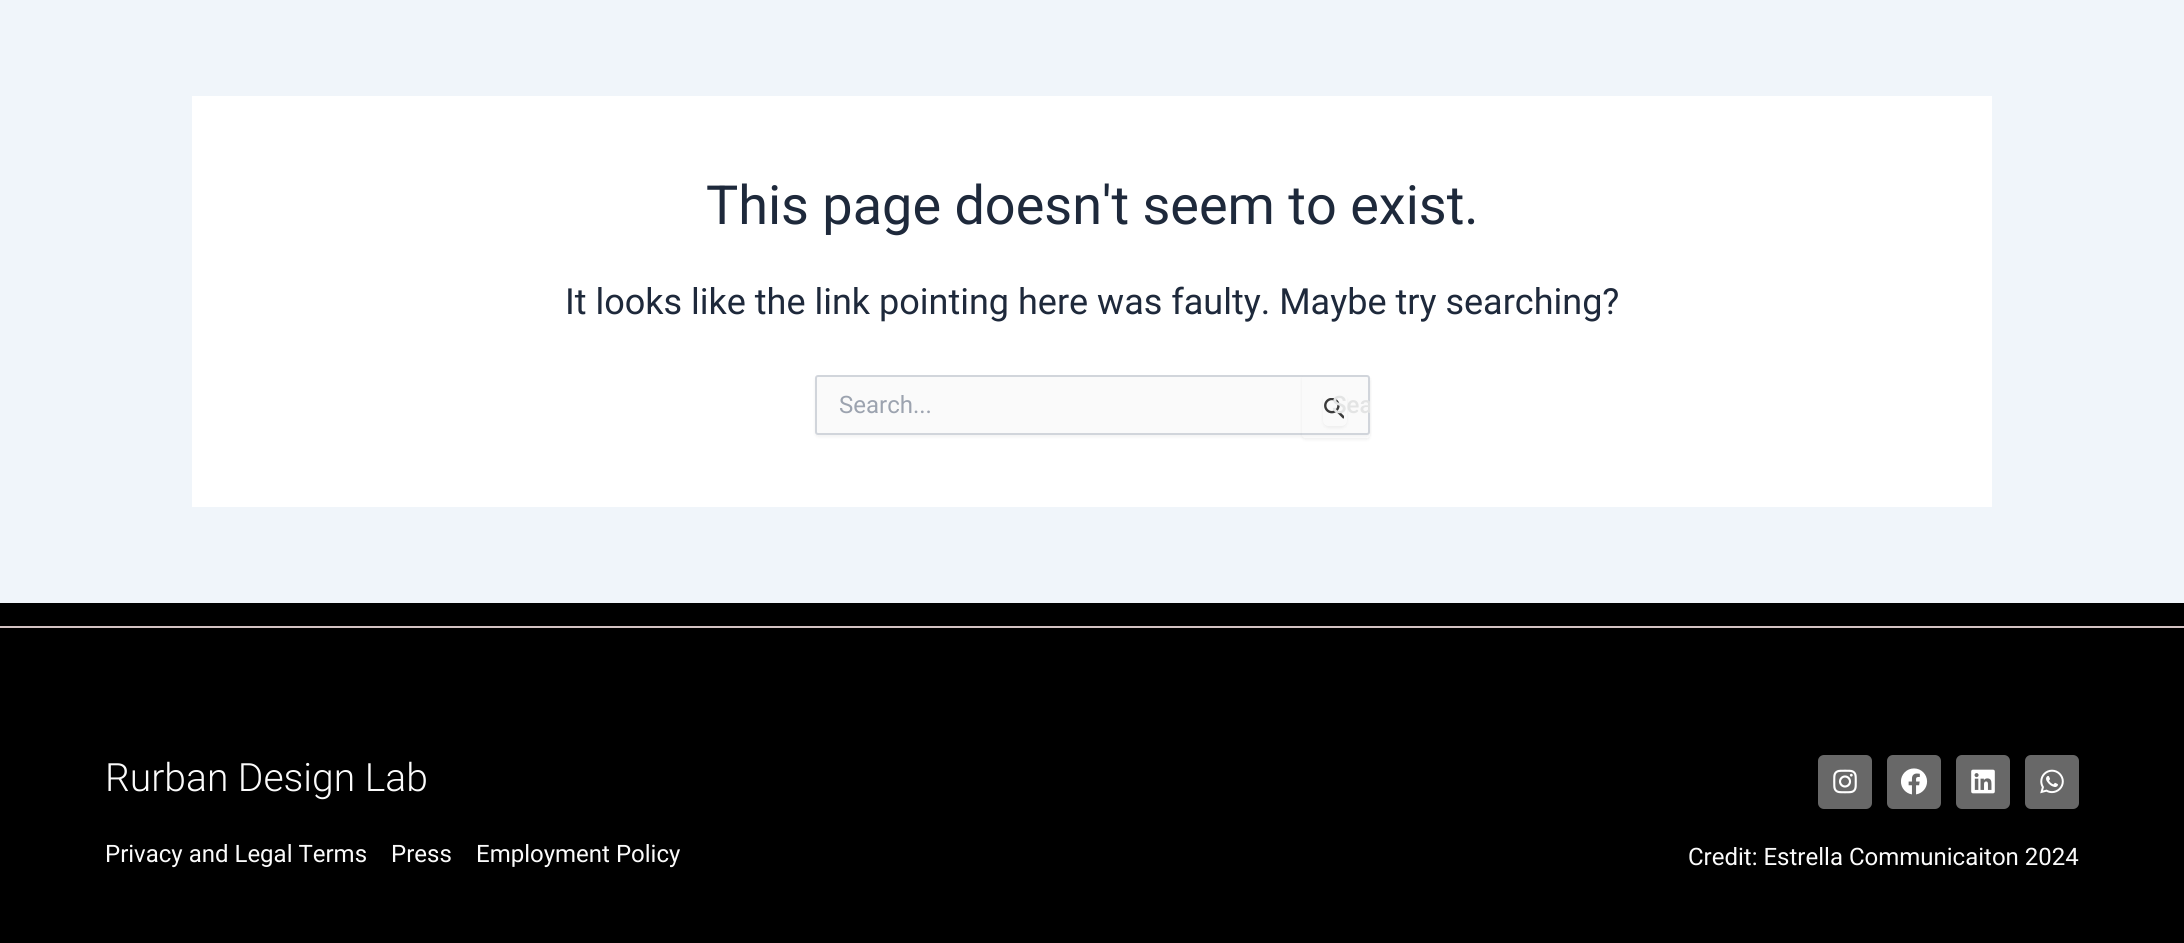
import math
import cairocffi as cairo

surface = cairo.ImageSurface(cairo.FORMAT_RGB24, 2184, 943)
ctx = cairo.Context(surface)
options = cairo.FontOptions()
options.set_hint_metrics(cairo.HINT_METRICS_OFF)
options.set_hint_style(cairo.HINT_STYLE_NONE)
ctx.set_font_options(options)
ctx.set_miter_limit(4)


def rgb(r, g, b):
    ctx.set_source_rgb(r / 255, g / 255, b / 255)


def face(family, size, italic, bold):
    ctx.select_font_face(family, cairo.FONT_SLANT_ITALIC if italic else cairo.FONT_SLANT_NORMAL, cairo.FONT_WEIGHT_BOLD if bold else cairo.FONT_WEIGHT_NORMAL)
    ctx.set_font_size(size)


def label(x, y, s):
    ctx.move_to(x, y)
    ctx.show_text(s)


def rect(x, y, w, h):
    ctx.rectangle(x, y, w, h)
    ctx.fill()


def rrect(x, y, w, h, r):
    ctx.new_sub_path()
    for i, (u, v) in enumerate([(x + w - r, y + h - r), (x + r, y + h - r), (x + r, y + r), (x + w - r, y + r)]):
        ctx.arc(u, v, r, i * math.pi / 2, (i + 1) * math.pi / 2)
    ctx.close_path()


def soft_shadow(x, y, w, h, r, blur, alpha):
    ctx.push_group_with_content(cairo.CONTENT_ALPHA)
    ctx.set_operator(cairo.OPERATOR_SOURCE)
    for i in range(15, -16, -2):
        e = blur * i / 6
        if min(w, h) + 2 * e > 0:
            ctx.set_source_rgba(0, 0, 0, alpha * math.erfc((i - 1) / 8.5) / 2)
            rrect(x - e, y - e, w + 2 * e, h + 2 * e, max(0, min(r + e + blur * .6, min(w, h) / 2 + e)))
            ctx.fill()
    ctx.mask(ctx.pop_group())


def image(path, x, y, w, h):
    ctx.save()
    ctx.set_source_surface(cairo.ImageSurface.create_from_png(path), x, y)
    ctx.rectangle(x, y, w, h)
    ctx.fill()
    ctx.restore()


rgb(240, 245, 250)
ctx.paint()
rgb(255, 255, 255)
rect(192, 96, 1800, 411)
face('Roboto', 54, 0, 0)
rgb(30, 41, 59)
label(706, 224, 'This page doesn\'t seem to exist.')
face('Roboto', 36, 0, 0)
label(565, 314, 'It looks like the link pointing here was faulty. Maybe try searching?')
rgb(0, 0, 0)
soft_shadow(815, 377, 555, 60, 3, 1.5, 0.05)
rgb(250, 250, 250)
rrect(816, 376, 553, 58, 2)
ctx.fill_preserve()
rgb(209, 213, 219)
ctx.stroke()
face('Roboto', 24, 0, 0)
rgb(156, 163, 175)
label(839, 413, 'Search...')
ctx.save()
ctx.set_fill_rule(cairo.FILL_RULE_EVEN_ODD)
ctx.new_path()
ctx.move_to(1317, 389)
ctx.line_to(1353, 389)
ctx.line_to(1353, 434)
ctx.line_to(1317, 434)
ctx.close_path()
ctx.move_to(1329, 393)
ctx.line_to(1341, 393)
ctx.curve_to(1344.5, 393, 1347, 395.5, 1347, 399)
ctx.line_to(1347, 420)
ctx.curve_to(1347, 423.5, 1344.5, 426, 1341, 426)
ctx.line_to(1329, 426)
ctx.curve_to(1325.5, 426, 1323, 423.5, 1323, 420)
ctx.line_to(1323, 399)
ctx.curve_to(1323, 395.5, 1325.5, 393, 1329, 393)
ctx.close_path()
ctx.clip()
rgb(0, 0, 0)
soft_shadow(1323, 395, 24, 33, 6, 1.5, 0.05)
ctx.restore()
image('image0.png', 1324, 398, 20, 21)
ctx.save()
ctx.set_fill_rule(cairo.FILL_RULE_EVEN_ODD)
ctx.new_path()
ctx.move_to(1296, 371)
ctx.line_to(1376, 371)
ctx.line_to(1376, 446)
ctx.line_to(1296, 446)
ctx.close_path()
ctx.move_to(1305, 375)
ctx.line_to(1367, 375)
ctx.curve_to(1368.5, 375, 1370, 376.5, 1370, 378)
ctx.line_to(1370, 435)
ctx.curve_to(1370, 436.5, 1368.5, 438, 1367, 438)
ctx.line_to(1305, 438)
ctx.curve_to(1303.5, 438, 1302, 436.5, 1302, 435)
ctx.line_to(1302, 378)
ctx.curve_to(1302, 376.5, 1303.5, 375, 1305, 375)
ctx.close_path()
ctx.clip()
rgb(0, 0, 0)
soft_shadow(1302, 377, 68, 63, 3, 1.5, 0.05)
ctx.restore()
ctx.save()
rrect(1302, 375, 68, 63, 3)
ctx.clip()
face('Roboto Medium', 24, 0, 0)
rgb(227, 228, 228)
label(1332, 413, 'Sea')
ctx.restore()
rgb(0, 0, 0)
rect(0, 603, 2184, 340)
rgb(210, 193, 193)
rect(0, 626, 2184, 2)
face('Roboto Light', 39, 0, 0)
rgb(251, 251, 251)
label(105, 791, 'Rurban Design Lab')
face('Roboto', 24, 0, 0)
label(105, 862, 'Privacy and Legal Terms')
label(391, 862, 'Press')
label(476, 862, 'Employment Policy')
rgb(104, 104, 104)
rrect(1818, 755, 54, 54, 6)
ctx.fill()
image('image1.png', 1833, 769, 24, 25)
rrect(1887, 755, 54, 54, 6)
ctx.fill()
image('image2.png', 1901, 768, 27, 27)
rrect(1956, 755, 54, 54, 6)
ctx.fill()
image('image3.png', 1971, 769, 24, 25)
rrect(2025, 755, 54, 54, 6)
ctx.fill()
image('image4.png', 2040, 769, 24, 25)
rgb(251, 251, 251)
label(1688, 865, 'Credit: Estrella Communicaiton 2024')
surface.write_to_png('render.png')
